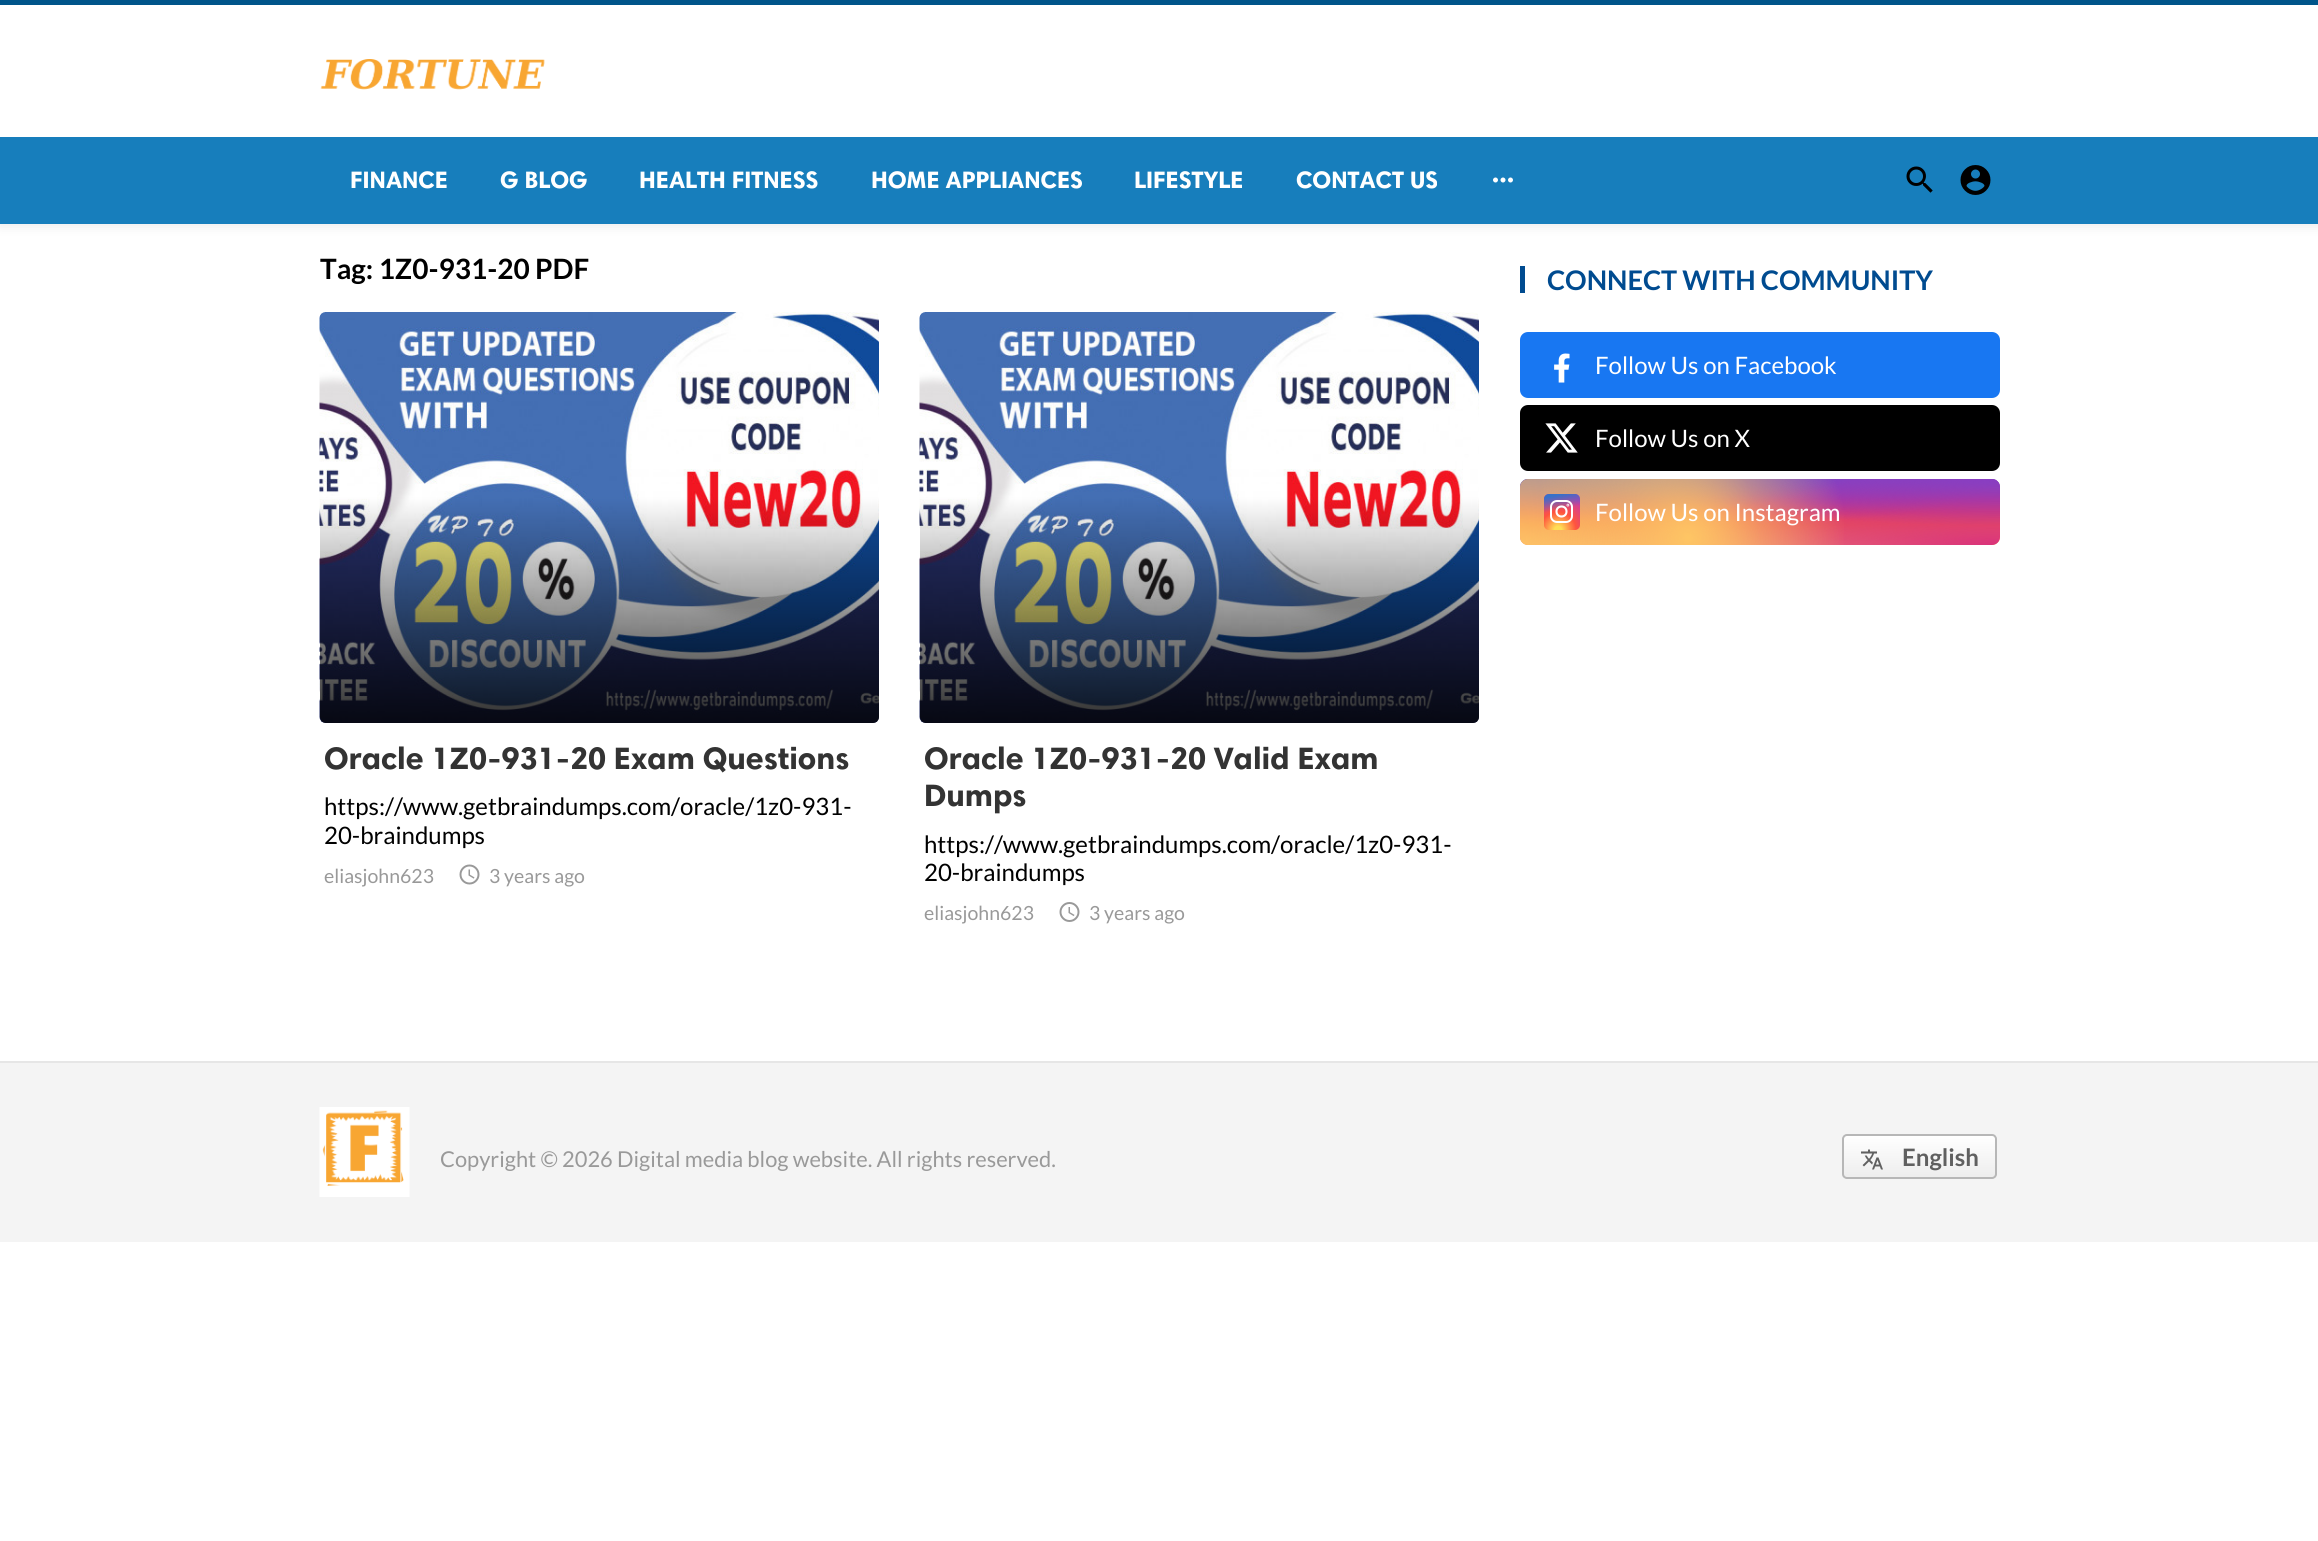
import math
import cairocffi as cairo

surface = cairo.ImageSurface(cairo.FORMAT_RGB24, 2318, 1541)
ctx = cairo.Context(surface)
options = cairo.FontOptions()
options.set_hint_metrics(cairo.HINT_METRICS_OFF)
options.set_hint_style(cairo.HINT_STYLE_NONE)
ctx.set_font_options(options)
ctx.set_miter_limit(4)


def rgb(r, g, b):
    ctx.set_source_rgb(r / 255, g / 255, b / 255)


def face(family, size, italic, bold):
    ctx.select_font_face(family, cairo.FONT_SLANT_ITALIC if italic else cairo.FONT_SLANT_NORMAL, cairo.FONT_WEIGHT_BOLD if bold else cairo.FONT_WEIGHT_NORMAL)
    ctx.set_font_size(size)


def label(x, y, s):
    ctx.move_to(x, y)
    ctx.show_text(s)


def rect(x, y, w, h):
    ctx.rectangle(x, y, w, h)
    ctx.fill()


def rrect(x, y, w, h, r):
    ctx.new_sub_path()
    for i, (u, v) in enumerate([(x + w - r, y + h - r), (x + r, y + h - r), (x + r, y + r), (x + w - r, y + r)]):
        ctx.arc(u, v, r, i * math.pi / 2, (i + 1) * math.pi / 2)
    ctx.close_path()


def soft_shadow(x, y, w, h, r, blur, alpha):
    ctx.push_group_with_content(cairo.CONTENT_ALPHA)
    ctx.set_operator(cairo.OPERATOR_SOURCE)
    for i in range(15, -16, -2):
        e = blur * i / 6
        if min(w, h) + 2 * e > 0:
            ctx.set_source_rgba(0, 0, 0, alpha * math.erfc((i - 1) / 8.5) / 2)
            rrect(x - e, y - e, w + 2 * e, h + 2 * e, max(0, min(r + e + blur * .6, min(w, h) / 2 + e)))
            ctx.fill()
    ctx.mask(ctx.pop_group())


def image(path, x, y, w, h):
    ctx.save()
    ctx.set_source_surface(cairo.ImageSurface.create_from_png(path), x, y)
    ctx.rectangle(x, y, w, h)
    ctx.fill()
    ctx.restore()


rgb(255, 255, 255)
ctx.paint()
rgb(0, 0, 0)
soft_shadow(0, 2, 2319, 223, 0, 6, 0.1)
rgb(255, 255, 255)
rect(0, 5, 2318, 132)
rgb(0, 85, 138)
rect(0, 0, 2318, 5)
image('image0.png', 320, 59, 225, 31)
rgb(23, 126, 188)
rect(0, 137, 2318, 87)
face('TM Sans', 24, 0, 1)
rgb(255, 255, 255)
label(350, 188, 'FINANCE')
label(500, 188, 'G BLOG')
label(639, 188, 'HEALTH FITNESS')
label(871, 188, 'HOME APPLIANCES')
label(1134, 188, 'LIFESTYLE')
label(1296, 188, 'CONTACT US')
image('image1.png', 1493, 177, 20, 6)
image('image2.png', 1906, 166, 27, 27)
image('image3.png', 1960, 165, 31, 30)
face('Lato', 28, 0, 1)
rgb(0, 0, 0)
label(320, 279, 'Tag: 1Z0-931-20 PDF')
image('image4.png', 319, 312, 560, 411)
gradient = cairo.LinearGradient(599, 312, 599, 723)
gradient.add_color_stop_rgba(0.45, 0, 0, 0, 0)
gradient.add_color_stop_rgba(0.99, 0, 0, 0, 0.8)
gradient.add_color_stop_rgba(1, 0, 0, 0, 0.8)
ctx.set_source(gradient)
rrect(320, 312, 559, 411, 6)
ctx.fill()
face('TM Sans', 31.25, 0, 1)
rgb(51, 51, 51)
label(324, 769, 'Oracle 1Z0-931-20 Exam Questions')
face('Lato', 24, 0, 0)
rgb(0, 0, 0)
label(324, 815, 'https://www.getbraindumps.com/oracle/1z0-931-')
label(324, 844, '20-braindumps')
face('Lato', 19.5, 0, 0)
rgb(153, 153, 153)
label(324, 883, 'eliasjohn623')
image('image5.png', 459, 864, 21, 21)
label(489, 883, '3 years ago')
image('image4.png', 919, 312, 560, 411)
gradient = cairo.LinearGradient(1199, 312, 1199, 723)
gradient.add_color_stop_rgba(0.45, 0, 0, 0, 0)
gradient.add_color_stop_rgba(0.99, 0, 0, 0, 0.8)
gradient.add_color_stop_rgba(1, 0, 0, 0, 0.8)
ctx.set_source(gradient)
rrect(920, 312, 559, 411, 6)
ctx.fill()
face('TM Sans', 31.25, 0, 1)
rgb(51, 51, 51)
label(924, 769, 'Oracle 1Z0-931-20 Valid Exam')
label(924, 806, 'Dumps')
face('Lato', 24, 0, 0)
rgb(0, 0, 0)
label(924, 853, 'https://www.getbraindumps.com/oracle/1z0-931-')
label(924, 881, '20-braindumps')
face('Lato', 19.5, 0, 0)
rgb(153, 153, 153)
label(924, 920, 'eliasjohn623')
image('image6.png', 1059, 902, 21, 20)
label(1089, 920, '3 years ago')
rgb(0, 75, 144)
rect(1520, 266, 5, 27)
face('Lato', 27, 0, 1)
label(1547, 290, 'CONNECT WITH COMMUNITY')
rgb(24, 119, 242)
rrect(1520, 332, 480, 66, 8)
ctx.fill()
image('image7.png', 1554, 353, 16, 30)
face('Lato', 24, 0, 0)
rgb(255, 255, 255)
label(1595, 374, 'Follow Us on Facebook')
rgb(0, 0, 0)
rrect(1520, 405, 480, 66, 8)
ctx.fill()
image('image8.png', 1545, 423, 33, 30)
rgb(255, 255, 255)
label(1595, 447, 'Follow Us on X')
gradient = cairo.LinearGradient(1760, 479, 1760, 545)
gradient.add_color_stop_rgba(0, 0.396, 0.349, 0.792, 1)
gradient.add_color_stop_rgba(0.3, 0.737, 0.192, 0.561, 1)
gradient.add_color_stop_rgba(0.5, 0.89, 0.247, 0.373, 1)
gradient.add_color_stop_rgba(0.7, 0.969, 0.463, 0.22, 1)
gradient.add_color_stop_rgba(1, 0.996, 0.776, 0.427, 1)
ctx.set_source(gradient)
rrect(1520, 479, 480, 66, 8)
ctx.fill()
gradient = cairo.RadialGradient(0, 0, 0, 0, 0, 1)
gradient.set_matrix(cairo.Matrix(1 / 679, 0, 0, 1 / 93, -1 * 2000 / 679, -1 * 545 / 93))
gradient.add_color_stop_rgba(0, 0.851, 0.192, 0.478, 1)
gradient.add_color_stop_rgba(1, 0.851, 0.192, 0.478, 0)
ctx.set_source(gradient)
rrect(1520, 479, 480, 66, 8)
ctx.fill()
gradient = cairo.RadialGradient(0, 0, 0, 0, 0, 1)
gradient.set_matrix(cairo.Matrix(1 / 407, 0, 0, 1 / 112, -1 * 1808 / 407, -1 * 465 / 112))
gradient.add_color_stop_rgba(0, 0.537, 0.239, 0.761, 1)
gradient.add_color_stop_rgba(0.5, 0.537, 0.239, 0.761, 0)
ctx.set_source(gradient)
rect(1632, 479, 365, 41)
gradient = cairo.RadialGradient(0, 0, 0, 0, 0, 1)
gradient.set_matrix(cairo.Matrix(1 / 679, 0, 0, 1 / 93, -1 * 2000 / 679, -1 * 479 / 93))
gradient.add_color_stop_rgba(0, 0.537, 0.239, 0.761, 1)
gradient.add_color_stop_rgba(0.5, 0.537, 0.239, 0.761, 0)
ctx.set_source(gradient)
rrect(1520, 479, 480, 66, 8)
ctx.fill()
gradient = cairo.RadialGradient(0, 0, 0, 0, 0, 1)
gradient.set_matrix(cairo.Matrix(1 / 543, 0, 0, 1 / 140, -1 * 1616 / 543, -1 * 446 / 140))
gradient.add_color_stop_rgba(0, 0.322, 0.345, 0.812, 1)
gradient.add_color_stop_rgba(0.5, 0.322, 0.345, 0.812, 0)
ctx.set_source(gradient)
rrect(1520, 479, 480, 66, 8)
ctx.fill()
gradient = cairo.RadialGradient(0, 0, 0, 0, 0, 1)
gradient.set_matrix(cairo.Matrix(1 / 679, 0, 0, 1 / 117, -1 * 1520 / 679, -1 * 462 / 117))
gradient.add_color_stop_rgba(0, 0.322, 0.345, 0.812, 1)
gradient.add_color_stop_rgba(0.5, 0.322, 0.345, 0.812, 0)
ctx.set_source(gradient)
rrect(1520, 479, 480, 66, 8)
ctx.fill()
gradient = cairo.RadialGradient(1520, 571, 0, 1520, 571, 489)
gradient.add_color_stop_rgba(0, 0.996, 0.773, 0.392, 1)
gradient.add_color_stop_rgba(0.5, 0.996, 0.773, 0.392, 0)
ctx.set_source(gradient)
rrect(1520, 479, 480, 66, 8)
ctx.fill()
gradient = cairo.RadialGradient(1688, 538, 0, 1688, 538, 318)
gradient.add_color_stop_rgba(0, 0.996, 0.773, 0.392, 1)
gradient.add_color_stop_rgba(0.5, 0.996, 0.773, 0.392, 0)
ctx.set_source(gradient)
rect(1541, 479, 303, 66)
gradient = cairo.RadialGradient(1558, 530, 0, 1558, 530, 36)
gradient.add_color_stop_rgba(0.1, 1, 0.867, 0.333, 1)
gradient.add_color_stop_rgba(0.5, 1, 0.329, 0.243, 1)
gradient.add_color_stop_rgba(1, 0.784, 0.216, 0.671, 1)
ctx.set_source(gradient)
rrect(1544, 494, 36, 36, 5)
ctx.fill()
gradient = cairo.LinearGradient(1544, 494, 1551, 530)
gradient.add_color_stop_rgba(0.1, 0.216, 0.443, 0.784, 1)
gradient.add_color_stop_rgba(0.5, 0.216, 0.443, 0.784, 0)
ctx.set_source(gradient)
rrect(1544, 494, 36, 36, 5)
ctx.fill()
rrect(1551, 501, 21, 21, 6)
rgb(255, 255, 255)
ctx.stroke()
ctx.arc(1561.5, 511.5, 5, 0, 2 * math.pi)
ctx.set_line_width(2.1)
ctx.stroke()
ctx.arc(1567.9, 505.1, 0.4, 0, 2 * math.pi)
ctx.stroke()
label(1595, 521, 'Follow Us on Instagram')
rgb(244, 244, 244)
rect(0, 1063, 2318, 179)
rgb(230, 230, 230)
rect(0, 1061, 2318, 2)
image('image9.png', 319, 1107, 91, 90)
face('Lato', 21.85, 0, 0)
rgb(153, 153, 153)
label(440, 1167, 'Copyright © 2026 Digital media blog website. All rights reserved.')
ctx.save()
rrect(1842, 1134, 155, 45, 5)
ctx.clip()
gradient = cairo.LinearGradient(1919, 1136, 1919, 1178)
gradient.add_color_stop_rgba(0, 1, 1, 1, 1)
gradient.add_color_stop_rgba(1, 0.929, 0.929, 0.929, 1)
ctx.set_source(gradient)
rect(1842, 1136, 155, 42)
ctx.restore()
rgb(255, 255, 255)
ctx.new_path()
ctx.move_to(1846, 1137)
ctx.line_to(1992, 1137)
ctx.curve_to(1994, 1137, 1995, 1138, 1995, 1140)
ctx.curve_to(1995, 1138, 1995, 1137, 1993, 1136)
ctx.line_to(1871, 1136)
ctx.curve_to(1864, 1136, 1844, 1131, 1844, 1140)
ctx.curve_to(1844, 1138, 1845, 1137, 1846, 1137)
ctx.close_path()
ctx.fill()
rrect(1843, 1135, 153, 43, 4)
rgb(183, 183, 183)
ctx.set_line_width(2)
ctx.stroke()
image('image10.png', 1861, 1149, 22, 21)
face('Lato', 24, 0, 1)
rgb(96, 96, 96)
label(1902, 1166, 'English')
surface.write_to_png('render.png')
